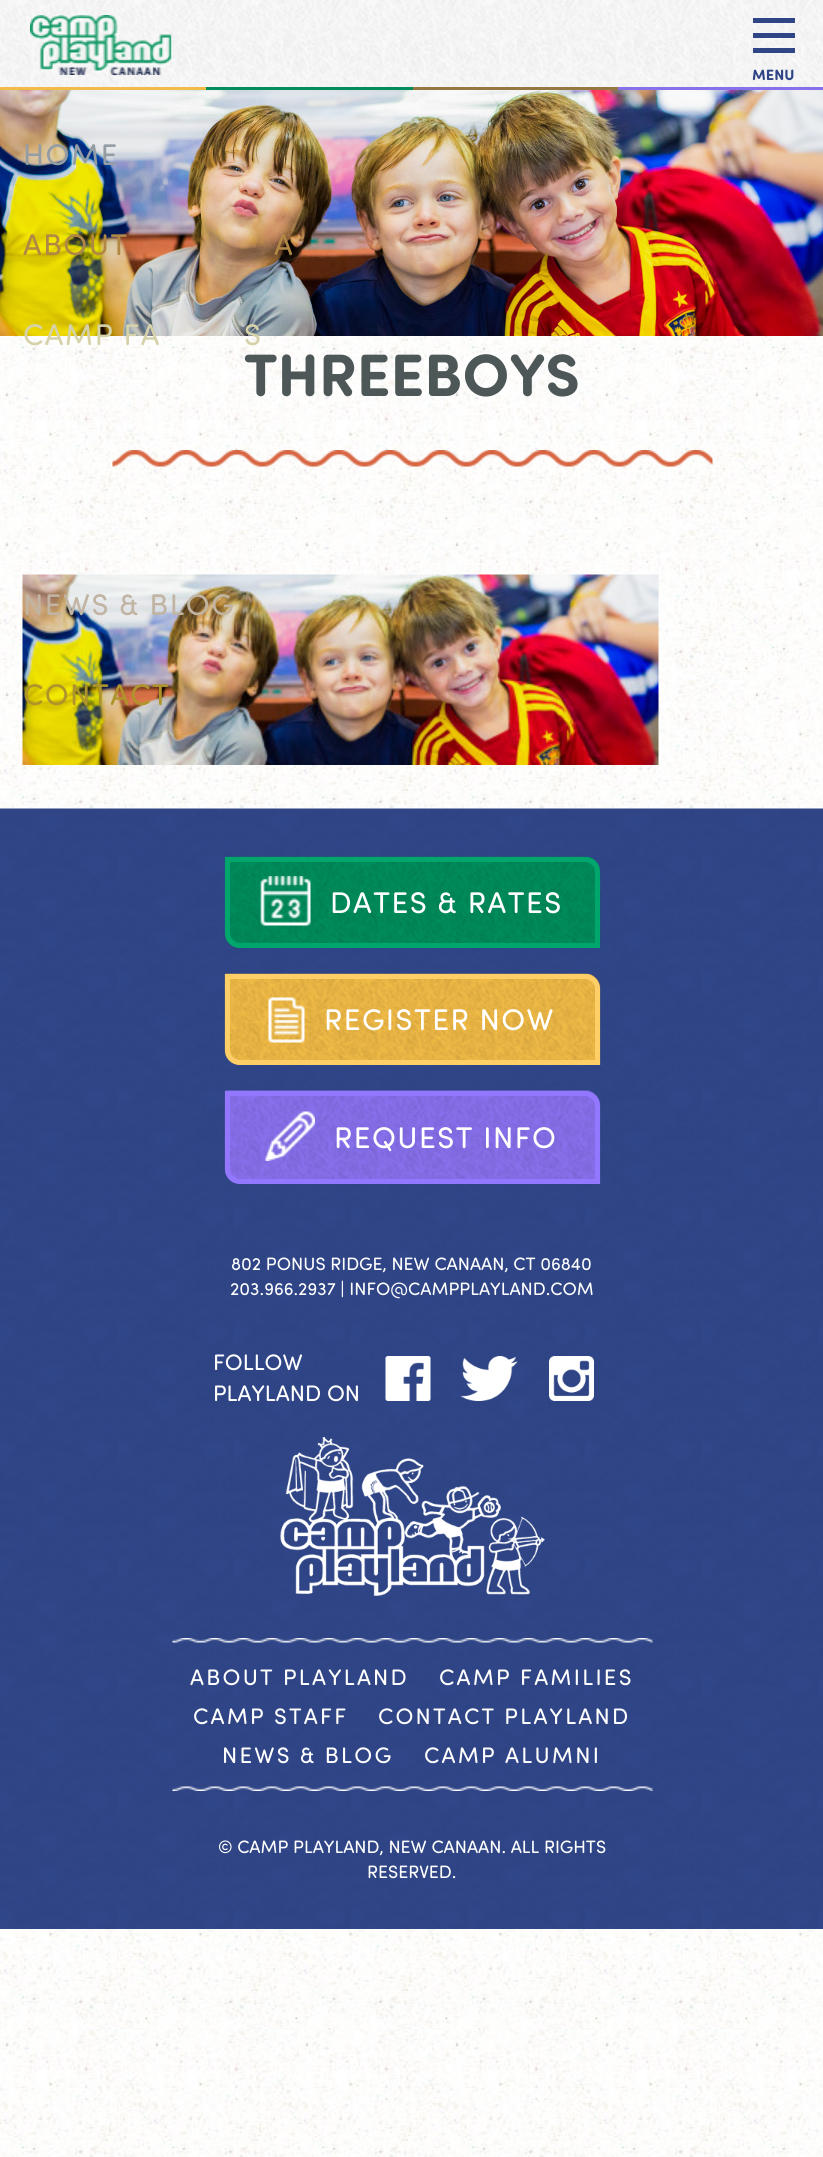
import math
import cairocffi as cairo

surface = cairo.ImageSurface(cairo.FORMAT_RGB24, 823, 2157)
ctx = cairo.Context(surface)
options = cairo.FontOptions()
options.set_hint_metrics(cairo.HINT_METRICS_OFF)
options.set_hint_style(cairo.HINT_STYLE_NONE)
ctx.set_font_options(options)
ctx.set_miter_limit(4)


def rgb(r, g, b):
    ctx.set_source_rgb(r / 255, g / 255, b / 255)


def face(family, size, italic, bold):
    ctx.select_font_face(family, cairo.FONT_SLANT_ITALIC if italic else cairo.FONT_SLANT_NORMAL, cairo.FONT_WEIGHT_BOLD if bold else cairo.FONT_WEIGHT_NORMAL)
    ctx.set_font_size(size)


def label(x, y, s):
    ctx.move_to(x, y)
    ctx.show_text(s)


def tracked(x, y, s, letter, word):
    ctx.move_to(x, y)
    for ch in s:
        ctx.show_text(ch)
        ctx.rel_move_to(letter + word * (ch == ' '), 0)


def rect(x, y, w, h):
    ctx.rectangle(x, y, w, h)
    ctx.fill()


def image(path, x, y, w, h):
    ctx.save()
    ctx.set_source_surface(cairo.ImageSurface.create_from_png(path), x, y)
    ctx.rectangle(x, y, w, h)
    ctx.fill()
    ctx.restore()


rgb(255, 255, 255)
ctx.paint()
image('image0.png', 0, 336, 823, 1821)
image('image1.png', 0, 0, 823, 87)
image('image2.png', 30, 15, 143, 60)
rgb(47, 69, 134)
rect(753, 18, 42, 5)
rect(753, 33, 42, 5)
rect(753, 48, 42, 5)
face('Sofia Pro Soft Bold', 15, 0, 1)
label(752, 80, 'MENU')
image('image3.png', 0, 90, 823, 246)
face('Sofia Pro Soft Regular', 30, 0, 0)
rgb(148, 156, 164)
tracked(23, 165, 'HOME', 1.5, 0)
rgb(176, 136, 68)
tracked(23, 255, 'ABOUT', 1.5, 0)
tracked(274, 255, 'A', 1.5, 0)
rgb(213, 210, 170)
tracked(23, 345, 'CAMP FA', 1.5, 0)
tracked(244, 345, 'S', 1.5, 0)
image('image5.png', 22, 574, 637, 191)
rgb(193, 180, 162)
tracked(23, 615, 'NEWS & BLOG', 1.5, 0)
rgb(175, 148, 43)
tracked(23, 705, 'CONTACT', 1.5, 0)
rgb(241, 187, 71)
rect(0, 87, 206, 3)
rgb(0, 141, 92)
rect(206, 87, 207, 3)
rgb(150, 119, 65)
rect(413, 87, 205, 3)
rgb(136, 112, 235)
rect(618, 87, 205, 3)
face('Sofia Pro Soft Bold', 60, 0, 1)
rgb(77, 87, 87)
label(244, 396, 'THREEBOYS')
image('image4.png', 112, 450, 601, 17)
image('image6.png', 0, 808, 823, 1121)
image('image7.png', 224, 856, 377, 92)
ctx.new_path()
ctx.move_to(227.5, 859.5)
ctx.line_to(585, 859.5)
ctx.curve_to(592, 859.5, 597.5, 865, 597.5, 872)
ctx.line_to(597.5, 945.5)
ctx.line_to(240, 945.5)
ctx.curve_to(233, 945.5, 227.5, 940, 227.5, 933)
ctx.close_path()
rgb(0, 166, 108)
ctx.set_line_width(5)
ctx.stroke()
image('image8.png', 260, 876, 51, 50)
face('Sofia Pro Soft Regular', 30, 0, 0)
rgb(255, 255, 255)
tracked(330, 913, 'DATES & RATES', 1.5, 0)
image('image9.png', 224, 973, 377, 92)
ctx.new_path()
ctx.move_to(227.5, 976.5)
ctx.line_to(585, 976.5)
ctx.curve_to(592, 976.5, 597.5, 982, 597.5, 989)
ctx.line_to(597.5, 1062.5)
ctx.line_to(240, 1062.5)
ctx.curve_to(233, 1062.5, 227.5, 1057, 227.5, 1050)
ctx.close_path()
rgb(255, 207, 103)
ctx.stroke()
image('image10.png', 268, 997, 37, 46)
rgb(255, 255, 255)
tracked(324, 1030, 'REGISTER NOW', 1.5, 0)
image('image11.png', 224, 1090, 377, 94)
ctx.new_path()
ctx.move_to(227.5, 1093.5)
ctx.line_to(585, 1093.5)
ctx.curve_to(592, 1093.5, 597.5, 1099, 597.5, 1106)
ctx.line_to(597.5, 1181.5)
ctx.line_to(240, 1181.5)
ctx.curve_to(233, 1181.5, 227.5, 1176, 227.5, 1169)
ctx.close_path()
rgb(147, 120, 255)
ctx.stroke()
image('image12.png', 265, 1111, 50, 50)
rgb(255, 255, 255)
tracked(334, 1148, 'REQUEST INFO', 1.5, 0)
face('Sofia Pro Soft Regular', 18, 0, 0)
label(231, 1270, '802 PONUS RIDGE, NEW CANAAN, CT 06840')
label(230, 1295, '203.966.2937 | INFO@CAMPPLAYLAND.COM')
face('Sofia Pro Soft Regular', 22.5, 0, 0)
label(213, 1370, 'FOLLOW')
label(213, 1401, 'PLAYLAND ON')
image('image13.png', 385, 1356, 46, 45)
image('image14.png', 460, 1356, 58, 45)
image('image15.png', 549, 1356, 45, 45)
image('image16.png', 280, 1437, 265, 159)
image('image17.png', 172, 1638, 481, 5)
tracked(190, 1685, 'ABOUT PLAYLAND', 2.25, 0)
tracked(439, 1685, 'CAMP FAMILIES', 2.25, 0)
tracked(193, 1724, 'CAMP STAFF', 2.25, 0)
tracked(378, 1724, 'CONTACT PLAYLAND', 2.25, 0)
tracked(222, 1763, 'NEWS & BLOG', 2.25, 0)
tracked(424, 1763, 'CAMP ALUMNI', 2.25, 0)
image('image18.png', 172, 1786, 481, 5)
face('Sofia Pro Soft Regular', 18, 0, 0)
label(218, 1853, '© CAMP PLAYLAND, NEW CANAAN. ALL RIGHTS')
label(367, 1878, 'RESERVED.')
surface.write_to_png('render.png')
